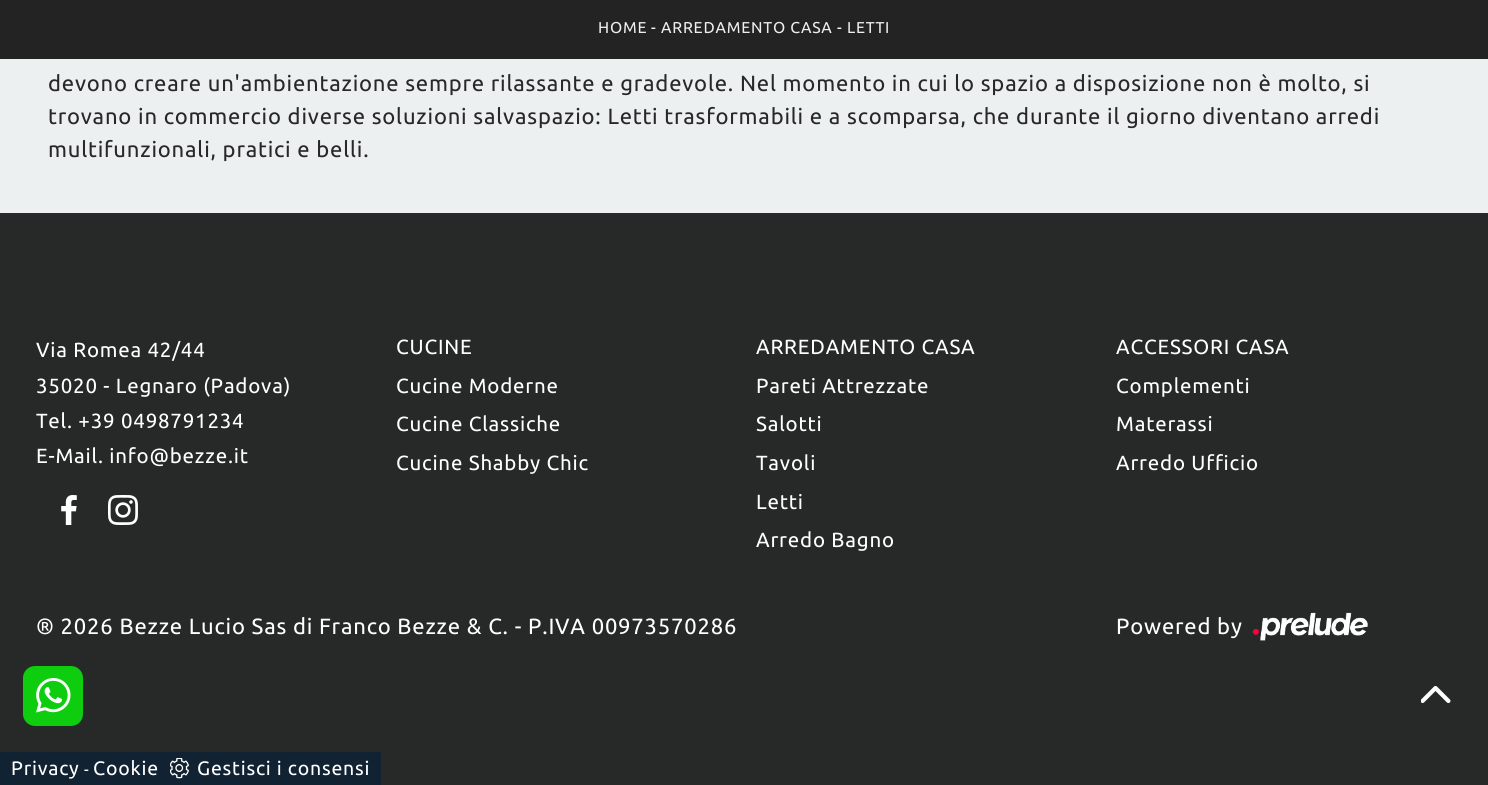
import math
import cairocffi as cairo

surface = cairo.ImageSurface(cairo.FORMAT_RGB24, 1488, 785)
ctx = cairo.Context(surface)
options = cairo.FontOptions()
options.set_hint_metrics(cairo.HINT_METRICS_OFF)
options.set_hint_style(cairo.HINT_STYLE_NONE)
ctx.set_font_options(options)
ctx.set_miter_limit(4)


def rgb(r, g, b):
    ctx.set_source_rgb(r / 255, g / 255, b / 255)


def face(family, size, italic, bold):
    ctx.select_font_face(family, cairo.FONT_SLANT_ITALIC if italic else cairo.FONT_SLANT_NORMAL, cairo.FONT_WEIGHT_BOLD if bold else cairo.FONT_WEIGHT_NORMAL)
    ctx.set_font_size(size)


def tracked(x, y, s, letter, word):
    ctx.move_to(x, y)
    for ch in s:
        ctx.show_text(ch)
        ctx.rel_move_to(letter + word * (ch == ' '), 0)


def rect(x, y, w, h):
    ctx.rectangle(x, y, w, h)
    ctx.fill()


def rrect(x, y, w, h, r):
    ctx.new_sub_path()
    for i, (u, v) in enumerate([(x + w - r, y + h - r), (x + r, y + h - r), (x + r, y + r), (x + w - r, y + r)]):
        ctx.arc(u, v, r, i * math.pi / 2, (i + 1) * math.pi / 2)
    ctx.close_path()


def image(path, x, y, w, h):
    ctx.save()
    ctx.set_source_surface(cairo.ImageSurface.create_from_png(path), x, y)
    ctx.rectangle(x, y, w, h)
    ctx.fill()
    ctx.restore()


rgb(38, 41, 40)
ctx.paint()
rgb(35, 35, 35)
rect(0, 0, 1488, 59)
face('Ubuntu', 15.75, 0, 0)
rgb(238, 238, 238)
tracked(598, 33, 'HOME', 0.79, 0)
rgb(255, 255, 255)
tracked(651, 33, '-', 0.79, 0)
rgb(238, 238, 238)
tracked(661, 33, 'ARREDAMENTO CASA', 0.79, 0)
rgb(255, 255, 255)
tracked(837, 33, '-', 0.79, 0)
rgb(238, 238, 238)
tracked(847, 33, 'LETTI', 0.79, 0)
rgb(237, 240, 240)
rect(0, 59, 1488, 154)
face('Ubuntu', 22.05, 0, 0)
rgb(38, 41, 40)
tracked(48, 91, 'devono creare un\'ambientazione sempre rilassante e gradevole. Nel momento in cui lo spazio a disposizione non è molto, si', 0.79, 0)
tracked(48, 124, 'trovano in commercio diverse soluzioni salvaspazio: Letti trasformabili e a scomparsa, che durante il giorno diventano arredi', 0.79, 0)
tracked(48, 157, 'multifunzionali, pratici e belli.', 0.79, 0)
face('Ubuntu', 20.5, 0, 0)
rgb(255, 255, 255)
tracked(36, 357, 'Via Romea 42/44', 0.79, 0)
tracked(36, 393, '35020 - Legnaro (Padova)', 0.79, 0)
tracked(36, 428, 'Tel. +39 0498791234', 0.79, 0)
tracked(36, 463, 'E-Mail. info@bezze.it', 0.79, 0)
image('image0.png', 61, 495, 16, 30)
image('image1.png', 108, 495, 30, 30)
tracked(396, 354, 'CUCINE', 0.79, 0)
tracked(396, 393, 'Cucine Moderne', 0.79, 0)
tracked(396, 431, 'Cucine Classiche', 0.79, 0)
tracked(396, 470, 'Cucine Shabby Chic', 0.79, 0)
tracked(756, 354, 'ARREDAMENTO CASA', 0.79, 0)
tracked(756, 393, 'Pareti Attrezzate', 0.79, 0)
tracked(756, 431, 'Salotti', 0.79, 0)
tracked(756, 470, 'Tavoli', 0.79, 0)
tracked(756, 509, 'Letti', 0.79, 0)
tracked(756, 547, 'Arredo Bagno', 0.79, 0)
tracked(1116, 354, 'ACCESSORI CASA', 0.79, 0)
tracked(1116, 393, 'Complementi', 0.79, 0)
tracked(1116, 431, 'Materassi', 0.79, 0)
tracked(1116, 470, 'Arredo Ufficio', 0.79, 0)
face('Ubuntu', 22.05, 0, 0)
tracked(36, 634, '® 2026 Bezze Lucio Sas di Franco Bezze & C. - P.IVA 00973570286', 0.79, 0)
tracked(1116, 634, 'Powered by', 0.79, 0)
image('image2.png', 1252, 612, 116, 29)
rgb(14, 204, 14)
rrect(23, 666, 60, 60, 12)
ctx.fill()
image('image3.png', 36, 678, 35, 35)
image('image4.png', 1421, 686, 30, 17)
rgb(17, 34, 51)
rect(0, 752, 381, 33)
face('Ubuntu', 19.5, 0, 0)
rgb(255, 255, 255)
tracked(11, 775, 'Privacy', 0.79, 0)
face('Ubuntu', 15.75, 0, 0)
tracked(84, 775, '-', 0.79, 0)
face('Ubuntu', 19.5, 0, 0)
tracked(93, 775, 'Cookie', 0.79, 0)
image('image5.png', 170, 758, 19, 21)
tracked(197, 775, 'Gestisci i consensi', 0.79, 0)
surface.write_to_png('render.png')
